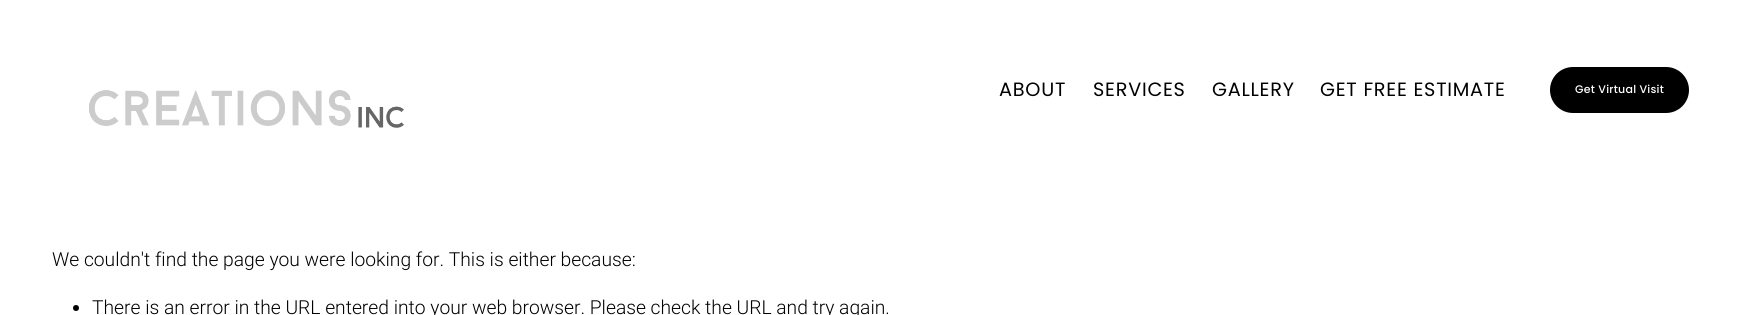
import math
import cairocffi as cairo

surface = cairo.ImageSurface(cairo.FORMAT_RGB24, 1741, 315)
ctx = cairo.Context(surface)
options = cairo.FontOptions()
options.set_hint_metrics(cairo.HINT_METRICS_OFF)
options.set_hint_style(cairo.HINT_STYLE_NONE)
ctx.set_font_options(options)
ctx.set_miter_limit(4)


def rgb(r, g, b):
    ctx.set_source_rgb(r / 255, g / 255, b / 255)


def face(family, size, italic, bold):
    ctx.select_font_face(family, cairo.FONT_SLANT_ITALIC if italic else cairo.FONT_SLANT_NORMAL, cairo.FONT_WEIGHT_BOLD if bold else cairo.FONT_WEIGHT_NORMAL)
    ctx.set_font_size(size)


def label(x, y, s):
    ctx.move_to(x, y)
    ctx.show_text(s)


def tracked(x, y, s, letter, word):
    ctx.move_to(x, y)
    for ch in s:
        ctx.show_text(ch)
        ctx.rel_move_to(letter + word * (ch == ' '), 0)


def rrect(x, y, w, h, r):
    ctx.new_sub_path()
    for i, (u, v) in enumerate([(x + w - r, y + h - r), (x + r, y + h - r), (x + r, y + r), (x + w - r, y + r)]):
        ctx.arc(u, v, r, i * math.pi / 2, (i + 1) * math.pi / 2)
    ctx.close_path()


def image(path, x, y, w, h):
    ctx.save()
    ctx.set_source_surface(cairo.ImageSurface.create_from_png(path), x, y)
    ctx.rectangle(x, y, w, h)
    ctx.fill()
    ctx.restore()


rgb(255, 255, 255)
ctx.paint()
image('image0.png', 89, 90, 315, 38)
face('Poppins', 19.25, 0, 0)
rgb(0, 0, 0)
tracked(999, 96, 'ABOUT', 0.75, 0)
tracked(1093, 96, 'SERVICES', 0.75, 0)
tracked(1212, 96, 'GALLERY', 0.75, 0)
tracked(1320, 96, 'GET FREE ESTIMATE', 0.75, 0)
rrect(1550, 67, 139, 46, 23)
ctx.fill()
face('Poppins Medium', 11, 0, 0)
rgb(255, 255, 255)
tracked(1575, 93, 'Get Virtual Visit', 0.25, 0)
face('Roboto Light', 19.25, 0, 0)
rgb(0, 0, 0)
label(52, 266, 'We couldn\'t find the page you were looking for. This is either because:')
ctx.new_path()
ctx.arc(76, 308, 3, 0, 2 * math.pi)
ctx.fill()
label(92, 314, 'There is an error in the URL entered into your web browser. Please check the URL and try again.')
surface.write_to_png('render.png')
